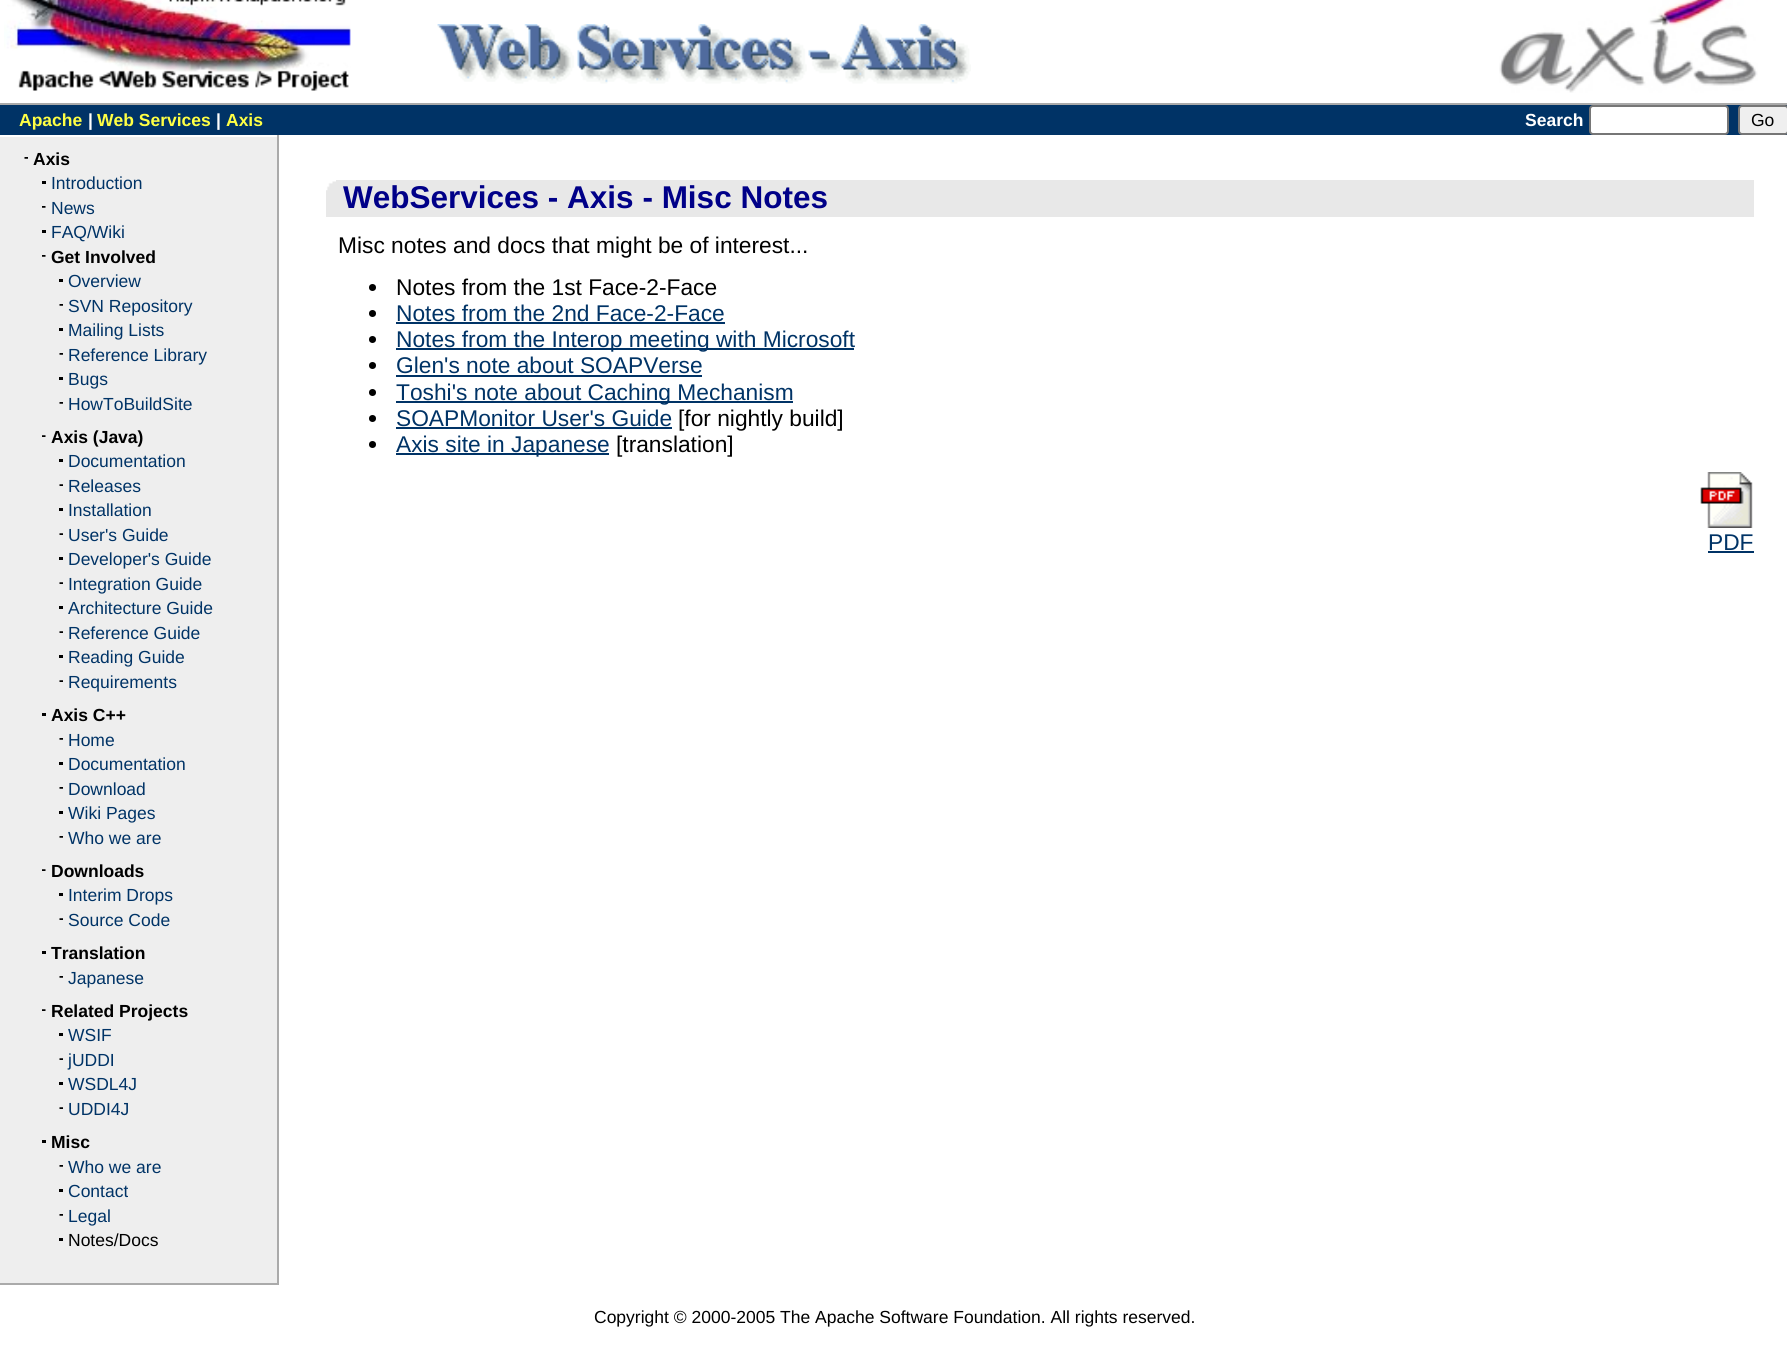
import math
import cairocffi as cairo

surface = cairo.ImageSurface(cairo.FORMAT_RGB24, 1787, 1354)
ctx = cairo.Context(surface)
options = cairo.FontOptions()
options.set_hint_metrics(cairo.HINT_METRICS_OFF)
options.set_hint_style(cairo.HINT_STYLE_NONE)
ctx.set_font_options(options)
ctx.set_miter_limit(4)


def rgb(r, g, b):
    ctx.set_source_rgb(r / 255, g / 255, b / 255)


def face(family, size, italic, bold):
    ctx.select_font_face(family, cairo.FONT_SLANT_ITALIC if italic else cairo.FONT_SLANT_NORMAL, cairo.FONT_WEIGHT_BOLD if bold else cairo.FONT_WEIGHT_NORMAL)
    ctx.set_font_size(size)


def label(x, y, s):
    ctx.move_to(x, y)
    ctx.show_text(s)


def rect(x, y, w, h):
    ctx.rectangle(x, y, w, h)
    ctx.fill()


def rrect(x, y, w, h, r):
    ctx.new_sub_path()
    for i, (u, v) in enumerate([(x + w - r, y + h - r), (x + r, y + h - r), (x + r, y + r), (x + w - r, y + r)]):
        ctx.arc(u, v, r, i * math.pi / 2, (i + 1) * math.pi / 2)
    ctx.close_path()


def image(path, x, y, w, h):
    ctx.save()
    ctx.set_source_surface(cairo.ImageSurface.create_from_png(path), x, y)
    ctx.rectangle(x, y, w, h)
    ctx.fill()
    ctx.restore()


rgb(255, 255, 255)
ctx.paint()
rgb(170, 170, 170)
rect(0, 103, 1787, 2)
image('image0.png', 4, 0, 347, 91)
image('image1.png', 437, 24, 534, 60)
image('image2.png', 1499, 0, 259, 93)
rgb(0, 51, 102)
rect(0, 105, 1787, 30)
face('Liberation Sans', 17.5, 0, 1)
rgb(255, 255, 68)
label(19, 126, 'Apache')
rgb(255, 255, 255)
label(88, 126, '|')
rgb(255, 255, 68)
label(97, 126, 'Web Services')
rgb(255, 255, 255)
label(216, 126, '|')
rgb(255, 255, 68)
label(226, 126, 'Axis')
rgb(255, 255, 255)
label(1525, 126, 'Search')
rrect(1590, 106, 138, 28, 3)
ctx.fill_preserve()
rgb(118, 118, 118)
ctx.stroke()
rgb(239, 239, 239)
rrect(1739, 106, 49, 28, 3)
ctx.fill_preserve()
rgb(118, 118, 118)
ctx.stroke()
face('Liberation Sans', 17.5, 0, 0)
rgb(0, 0, 0)
label(1751, 126, 'Go')
rgb(238, 238, 238)
rect(0, 137, 277, 1146)
rgb(170, 170, 170)
rect(277, 135, 2, 1150)
rect(0, 1283, 278, 2)
image('image3.png', 24, 157, 4, 2)
face('Liberation Sans', 17.5, 0, 1)
rgb(0, 0, 0)
label(33, 165, 'Axis')
rect(42, 181, 4, 3)
face('Liberation Sans', 17.5, 0, 0)
rgb(0, 51, 102)
label(51, 189, 'Introduction')
image('image4.png', 42, 206, 4, 2)
label(51, 214, 'News')
rgb(0, 0, 0)
rect(42, 230, 4, 3)
rgb(0, 51, 102)
label(51, 238, 'FAQ/Wiki')
image('image4.png', 42, 255, 4, 2)
face('Liberation Sans', 17.5, 0, 1)
rgb(0, 0, 0)
label(51, 263, 'Get Involved')
rect(59, 279, 4, 3)
face('Liberation Sans', 17.5, 0, 0)
rgb(0, 51, 102)
label(68, 287, 'Overview')
image('image3.png', 59, 304, 4, 2)
label(68, 312, 'SVN Repository')
rgb(0, 0, 0)
rect(59, 328, 4, 3)
rgb(0, 51, 102)
label(68, 336, 'Mailing Lists')
image('image3.png', 59, 353, 4, 2)
label(68, 361, 'Reference Library')
rgb(0, 0, 0)
rect(59, 377, 4, 3)
rgb(0, 51, 102)
label(68, 385, 'Bugs')
image('image3.png', 59, 402, 4, 2)
label(68, 410, 'HowToBuildSite')
image('image5.png', 42, 435, 4, 2)
face('Liberation Sans', 17.5, 0, 1)
rgb(0, 0, 0)
label(51, 443, 'Axis (Java)')
rect(59, 459, 4, 3)
face('Liberation Sans', 17.5, 0, 0)
rgb(0, 51, 102)
label(68, 467, 'Documentation')
image('image6.png', 59, 484, 4, 2)
label(68, 492, 'Releases')
rgb(0, 0, 0)
rect(59, 508, 4, 3)
rgb(0, 51, 102)
label(68, 516, 'Installation')
image('image6.png', 59, 533, 4, 2)
label(68, 541, 'User\'s Guide')
rgb(0, 0, 0)
rect(59, 557, 4, 3)
rgb(0, 51, 102)
label(68, 565, 'Developer\'s Guide')
image('image6.png', 59, 582, 4, 2)
label(68, 590, 'Integration Guide')
rgb(0, 0, 0)
rect(59, 606, 4, 3)
rgb(0, 51, 102)
label(68, 614, 'Architecture Guide')
image('image6.png', 59, 631, 4, 2)
label(68, 639, 'Reference Guide')
rgb(0, 0, 0)
rect(59, 655, 4, 3)
rgb(0, 51, 102)
label(68, 663, 'Reading Guide')
image('image6.png', 59, 680, 4, 2)
label(68, 688, 'Requirements')
rgb(0, 0, 0)
rect(42, 713, 4, 3)
face('Liberation Sans', 17.5, 0, 1)
label(51, 721, 'Axis C++')
image('image3.png', 59, 738, 4, 2)
face('Liberation Sans', 17.5, 0, 0)
rgb(0, 51, 102)
label(68, 746, 'Home')
rgb(0, 0, 0)
rect(59, 762, 4, 3)
rgb(0, 51, 102)
label(68, 770, 'Documentation')
image('image3.png', 59, 787, 4, 2)
label(68, 795, 'Download')
rgb(0, 0, 0)
rect(59, 811, 4, 3)
rgb(0, 51, 102)
label(68, 819, 'Wiki Pages')
image('image3.png', 59, 836, 4, 2)
label(68, 844, 'Who we are')
image('image5.png', 42, 869, 4, 2)
face('Liberation Sans', 17.5, 0, 1)
rgb(0, 0, 0)
label(51, 877, 'Downloads')
rect(59, 893, 4, 3)
face('Liberation Sans', 17.5, 0, 0)
rgb(0, 51, 102)
label(68, 901, 'Interim Drops')
image('image6.png', 59, 918, 4, 2)
label(68, 926, 'Source Code')
rgb(0, 0, 0)
rect(42, 951, 4, 3)
face('Liberation Sans', 17.5, 0, 1)
label(51, 959, 'Translation')
image('image3.png', 59, 976, 4, 2)
face('Liberation Sans', 17.5, 0, 0)
rgb(0, 51, 102)
label(68, 984, 'Japanese')
image('image5.png', 42, 1009, 4, 2)
face('Liberation Sans', 17.5, 0, 1)
rgb(0, 0, 0)
label(51, 1017, 'Related Projects')
rect(59, 1033, 4, 3)
face('Liberation Sans', 17.5, 0, 0)
rgb(0, 51, 102)
label(68, 1041, 'WSIF')
image('image6.png', 59, 1058, 4, 2)
label(68, 1066, 'jUDDI')
rgb(0, 0, 0)
rect(59, 1082, 4, 3)
rgb(0, 51, 102)
label(68, 1090, 'WSDL4J')
image('image6.png', 59, 1107, 4, 2)
label(68, 1115, 'UDDI4J')
rgb(0, 0, 0)
rect(42, 1140, 4, 3)
face('Liberation Sans', 17.5, 0, 1)
label(51, 1148, 'Misc')
image('image3.png', 59, 1165, 4, 2)
face('Liberation Sans', 17.5, 0, 0)
rgb(0, 51, 102)
label(68, 1173, 'Who we are')
rgb(0, 0, 0)
rect(59, 1189, 4, 3)
rgb(0, 51, 102)
label(68, 1197, 'Contact')
image('image3.png', 59, 1214, 4, 2)
label(68, 1222, 'Legal')
rgb(0, 0, 0)
rect(59, 1238, 4, 3)
label(68, 1246, 'Notes/Docs')
rgb(232, 232, 232)
rect(326, 180, 1428, 37)
image('image7.png', 326, 180, 10, 11)
face('Liberation Sans', 31.5, 0, 1)
rgb(0, 0, 136)
label(343, 208, 'WebServices - Axis - Misc Notes')
face('Liberation Sans', 22.75, 0, 0)
rgb(0, 0, 0)
label(338, 253, 'Misc notes and docs that might be of interest...')
ctx.new_path()
ctx.arc(372.5, 287.5, 3.5, 0, 2 * math.pi)
ctx.fill()
label(396, 295, 'Notes from the 1st Face-2-Face')
ctx.new_path()
ctx.arc(372.5, 313.5, 3.5, 0, 2 * math.pi)
ctx.fill()
rgb(0, 51, 102)
label(396, 321, 'Notes from the 2nd Face-2-Face')
rect(396, 322, 329, 2)
rgb(0, 0, 0)
ctx.new_path()
ctx.arc(372.5, 339.5, 3.5, 0, 2 * math.pi)
ctx.fill()
rgb(0, 51, 102)
rect(396, 348, 458, 2)
label(396, 347, 'Notes from the Interop meeting with Microsoft')
rgb(0, 0, 0)
ctx.new_path()
ctx.arc(372.5, 365.5, 3.5, 0, 2 * math.pi)
ctx.fill()
rgb(0, 51, 102)
label(396, 373, 'Glen\'s note about SOAPVerse')
rect(396, 375, 306, 2)
rgb(0, 0, 0)
ctx.new_path()
ctx.arc(372.5, 392.5, 3.5, 0, 2 * math.pi)
ctx.fill()
rgb(0, 51, 102)
rect(396, 401, 397, 2)
label(396, 400, 'Toshi\'s note about Caching Mechanism')
rgb(0, 0, 0)
ctx.new_path()
ctx.arc(372.5, 418.5, 3.5, 0, 2 * math.pi)
ctx.fill()
rgb(0, 51, 102)
label(396, 426, 'SOAPMonitor User\'s Guide')
rect(396, 427, 276, 2)
rgb(0, 0, 0)
label(678, 426, '[for nightly build]')
ctx.new_path()
ctx.arc(372.5, 444.5, 3.5, 0, 2 * math.pi)
ctx.fill()
rgb(0, 51, 102)
rect(396, 453, 213, 2)
label(396, 452, 'Axis site in Japanese')
rgb(0, 0, 0)
label(616, 452, '[translation]')
image('image8.png', 1700, 472, 53, 56)
rgb(0, 51, 102)
label(1708, 550, 'PDF')
rect(1708, 551, 46, 2)
face('Liberation Sans', 17.5, 0, 0)
rgb(0, 0, 0)
label(594, 1323, 'Copyright © 2000-2005 The Apache Software Foundation. All rights reserved.')
surface.write_to_png('render.png')
